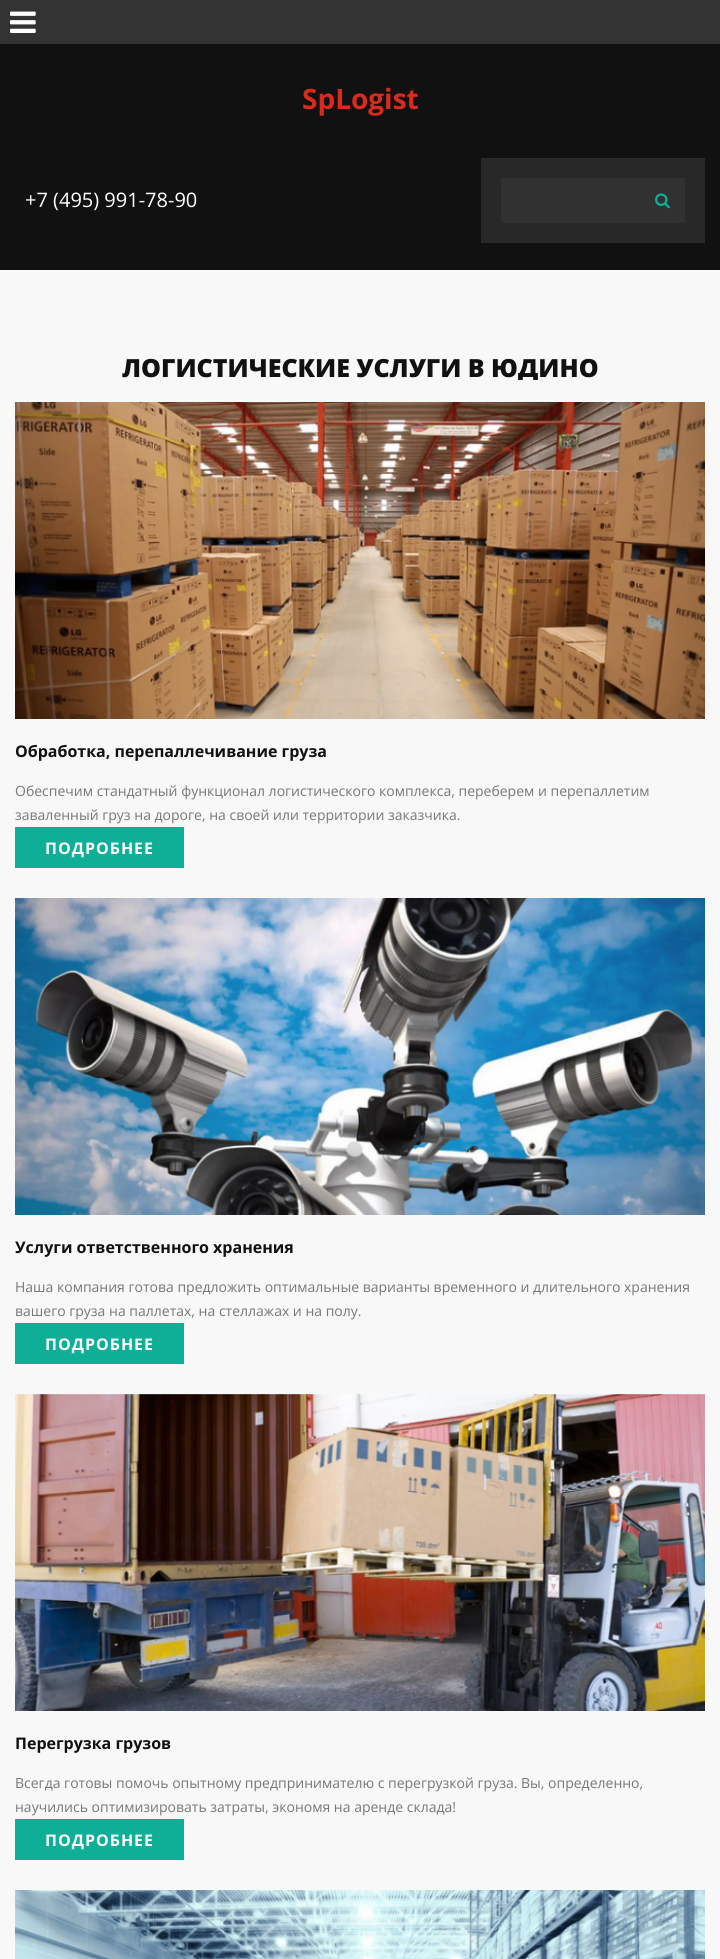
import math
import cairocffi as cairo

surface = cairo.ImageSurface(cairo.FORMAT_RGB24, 720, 1959)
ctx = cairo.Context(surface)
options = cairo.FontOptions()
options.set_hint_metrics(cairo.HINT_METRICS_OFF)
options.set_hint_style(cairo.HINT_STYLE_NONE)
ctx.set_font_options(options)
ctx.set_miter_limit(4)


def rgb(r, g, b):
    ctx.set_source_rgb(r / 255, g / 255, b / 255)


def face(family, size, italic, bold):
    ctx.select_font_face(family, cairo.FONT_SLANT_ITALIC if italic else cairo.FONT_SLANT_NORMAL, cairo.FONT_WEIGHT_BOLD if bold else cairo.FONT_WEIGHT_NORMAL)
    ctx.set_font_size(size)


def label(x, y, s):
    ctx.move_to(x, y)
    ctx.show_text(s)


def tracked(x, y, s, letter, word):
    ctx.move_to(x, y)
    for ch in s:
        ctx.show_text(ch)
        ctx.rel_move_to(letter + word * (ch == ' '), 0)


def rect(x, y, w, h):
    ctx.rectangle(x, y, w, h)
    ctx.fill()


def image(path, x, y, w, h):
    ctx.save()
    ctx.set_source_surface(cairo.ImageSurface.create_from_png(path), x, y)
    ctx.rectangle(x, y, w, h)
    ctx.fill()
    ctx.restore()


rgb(248, 248, 248)
ctx.paint()
rgb(51, 51, 51)
rect(0, 0, 720, 44)
image('image0.png', 10, 11, 26, 22)
rgb(17, 17, 17)
rect(0, 44, 720, 226)
face('Open Sans', 28, 0, 1)
rgb(219, 42, 28)
label(302, 109, 'SpLogist')
face('Open Sans', 20, 0, 0)
rgb(255, 255, 255)
label(25, 207, '+7 (495) 991-78-90')
rgb(40, 40, 40)
rect(481, 158, 224, 85)
rgb(49, 49, 49)
rect(501, 178, 184, 45)
image('image1.png', 655, 193, 15, 16)
ctx.save()
ctx.rectangle(15, 355, 690, 25)
ctx.clip()
face('Open Sans ExtraBold', 25, 0, 0)
rgb(17, 17, 17)
label(122, 377, 'ЛОГИСТИЧЕСКИЕ УСЛУГИ В ЮДИНО')
ctx.restore()
image('image2.png', 15, 402, 690, 317)
face('Open Sans', 16, 0, 1)
rgb(17, 17, 17)
label(15, 757, 'Обработка, перепаллечивание груза')
face('Open Sans', 14, 0, 0)
rgb(119, 119, 119)
label(15, 796, 'Обеспечим стандатный функционал логистического комплекса, переберем и перепаллетим')
label(15, 820, 'заваленный груз на дороге, на своей или территории заказчика.')
rgb(15, 175, 151)
rect(15, 827, 169, 41)
face('Open Sans', 16, 0, 1)
rgb(255, 255, 255)
tracked(45, 854, 'ПОДРОБНЕЕ', 1, 0)
image('image3.png', 15, 898, 690, 317)
rgb(17, 17, 17)
label(15, 1253, 'Услуги ответственного хранения')
face('Open Sans', 14, 0, 0)
rgb(119, 119, 119)
label(15, 1292, 'Наша компания готова предложить оптимальные варианты временного и длительного хранения')
label(15, 1316, 'вашего груза на паллетах, на стеллажах и на полу.')
rgb(15, 175, 151)
rect(15, 1323, 169, 41)
face('Open Sans', 16, 0, 1)
rgb(255, 255, 255)
tracked(45, 1350, 'ПОДРОБНЕЕ', 1, 0)
image('image4.png', 15, 1394, 690, 317)
rgb(17, 17, 17)
label(15, 1749, 'Перегрузка грузов')
face('Open Sans', 14, 0, 0)
rgb(119, 119, 119)
label(15, 1788, 'Всегда готовы помочь опытному предпринимателю с перегрузкой груза. Вы, определенно,')
label(15, 1812, 'научились оптимизировать затраты, экономя на аренде склада!')
rgb(15, 175, 151)
rect(15, 1819, 169, 41)
face('Open Sans', 16, 0, 1)
rgb(255, 255, 255)
tracked(45, 1846, 'ПОДРОБНЕЕ', 1, 0)
image('image5.png', 15, 1890, 690, 69)
surface.write_to_png('render.png')
